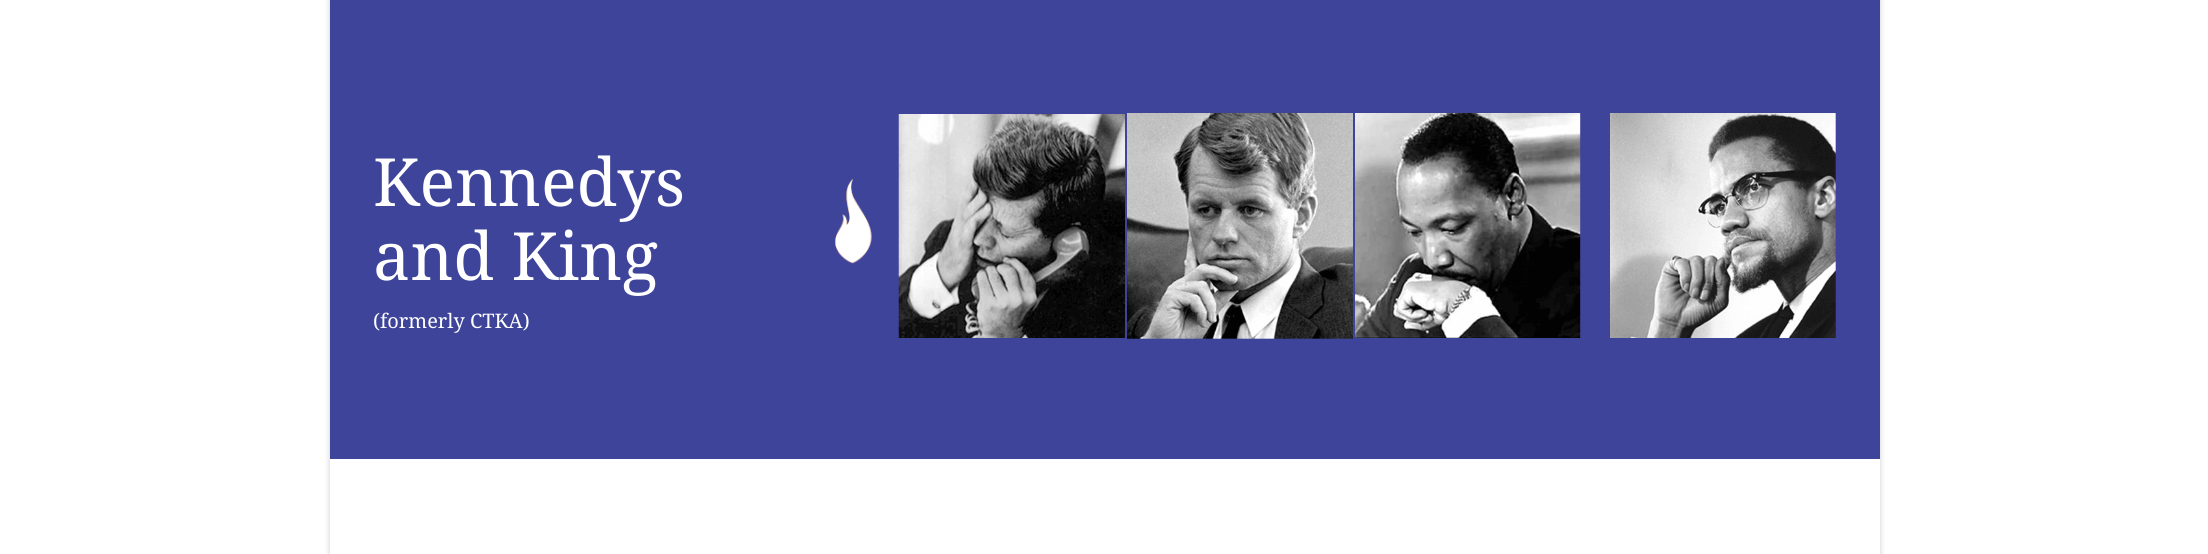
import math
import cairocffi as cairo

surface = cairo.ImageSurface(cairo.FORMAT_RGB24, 2208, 554)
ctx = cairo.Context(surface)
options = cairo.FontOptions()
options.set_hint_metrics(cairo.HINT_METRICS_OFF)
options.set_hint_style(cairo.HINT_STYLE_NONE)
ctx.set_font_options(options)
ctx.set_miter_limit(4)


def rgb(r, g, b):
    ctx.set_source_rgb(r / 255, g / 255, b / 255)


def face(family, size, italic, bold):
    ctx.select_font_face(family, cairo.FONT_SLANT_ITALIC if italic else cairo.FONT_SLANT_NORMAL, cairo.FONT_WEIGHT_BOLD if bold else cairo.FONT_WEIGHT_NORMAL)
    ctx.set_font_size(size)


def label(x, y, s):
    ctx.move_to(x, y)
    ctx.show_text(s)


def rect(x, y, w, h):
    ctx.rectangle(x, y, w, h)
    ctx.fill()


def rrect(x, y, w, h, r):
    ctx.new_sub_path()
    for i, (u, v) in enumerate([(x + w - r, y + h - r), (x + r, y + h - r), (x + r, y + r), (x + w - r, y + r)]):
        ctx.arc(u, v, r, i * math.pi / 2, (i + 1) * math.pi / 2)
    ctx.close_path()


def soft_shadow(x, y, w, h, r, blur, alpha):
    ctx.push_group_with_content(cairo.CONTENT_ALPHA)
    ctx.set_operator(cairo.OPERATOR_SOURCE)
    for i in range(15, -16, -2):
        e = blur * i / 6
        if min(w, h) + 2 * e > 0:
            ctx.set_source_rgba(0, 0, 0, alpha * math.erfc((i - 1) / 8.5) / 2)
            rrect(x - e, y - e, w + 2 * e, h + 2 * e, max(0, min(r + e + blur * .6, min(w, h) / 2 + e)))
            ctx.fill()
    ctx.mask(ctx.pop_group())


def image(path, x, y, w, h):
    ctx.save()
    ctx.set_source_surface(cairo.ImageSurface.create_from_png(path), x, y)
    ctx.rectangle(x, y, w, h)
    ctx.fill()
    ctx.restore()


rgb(255, 255, 255)
ctx.paint()
ctx.save()
ctx.set_fill_rule(cairo.FILL_RULE_EVEN_ODD)
ctx.new_path()
ctx.move_to(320, 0)
ctx.line_to(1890, 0)
ctx.line_to(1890, 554)
ctx.line_to(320, 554)
ctx.close_path()
ctx.move_to(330, 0)
ctx.line_to(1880, 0)
ctx.line_to(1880, 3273)
ctx.line_to(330, 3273)
ctx.close_path()
ctx.clip()
rgb(0, 0, 0)
soft_shadow(330, 0, 1550, 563, 0, 3, 0.2)
ctx.restore()
rgb(61, 68, 154)
rect(330, 0, 1550, 459)
face('Droid Serif', 66.5, 0, 0)
rgb(255, 255, 255)
label(373, 206, 'Kennedys')
label(373, 280, 'and King')
image('image0.png', 835, 178, 37, 86)
image('image1.png', 898, 113, 938, 226)
face('Droid Serif', 20, 0, 0)
label(373, 328, '(formerly CTKA)')
surface.write_to_png('render.png')
